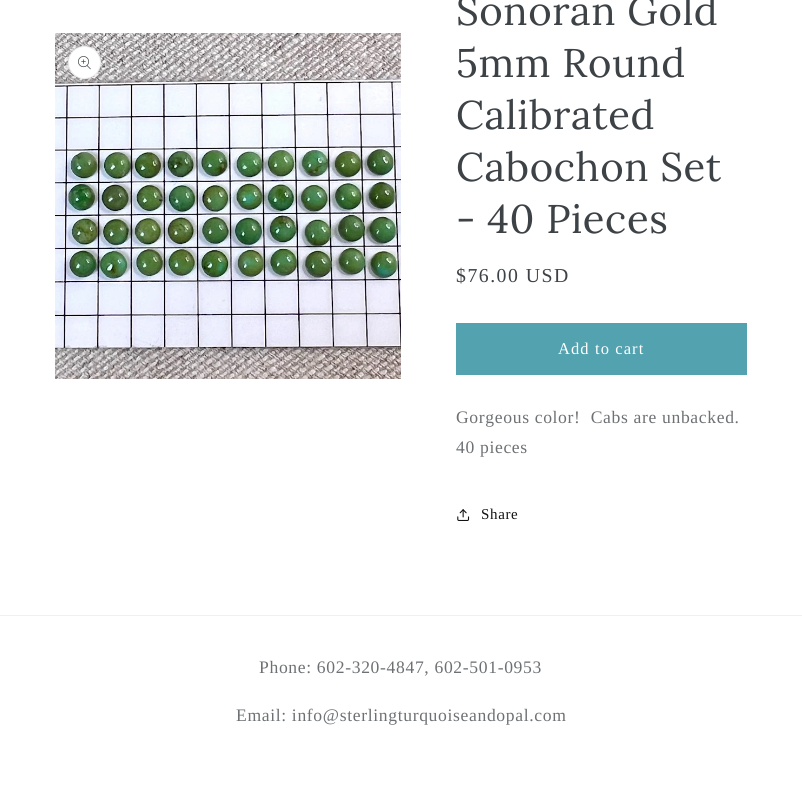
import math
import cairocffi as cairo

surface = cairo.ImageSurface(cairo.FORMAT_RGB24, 802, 802)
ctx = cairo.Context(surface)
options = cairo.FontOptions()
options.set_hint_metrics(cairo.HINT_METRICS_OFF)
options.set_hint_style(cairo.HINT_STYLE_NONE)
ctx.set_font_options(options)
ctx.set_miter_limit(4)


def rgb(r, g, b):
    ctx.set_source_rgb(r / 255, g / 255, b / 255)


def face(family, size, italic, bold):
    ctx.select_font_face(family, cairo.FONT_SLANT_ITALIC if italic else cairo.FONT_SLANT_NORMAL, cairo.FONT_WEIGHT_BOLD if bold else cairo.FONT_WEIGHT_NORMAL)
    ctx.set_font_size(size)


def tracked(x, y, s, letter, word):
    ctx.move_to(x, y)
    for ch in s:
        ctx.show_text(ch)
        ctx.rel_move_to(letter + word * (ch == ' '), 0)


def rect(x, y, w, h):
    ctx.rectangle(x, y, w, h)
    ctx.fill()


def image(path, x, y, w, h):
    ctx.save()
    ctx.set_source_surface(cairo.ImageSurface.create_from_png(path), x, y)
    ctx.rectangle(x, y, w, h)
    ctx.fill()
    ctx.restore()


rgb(255, 255, 255)
ctx.paint()
image('image0.png', 55, 33, 346, 346)
rgb(255, 255, 255)
ctx.arc(84.5, 62.5, 16.5, 0, 2 * math.pi)
ctx.fill()
ctx.arc(84.5, 62.5, 16, 0, 2 * math.pi)
ctx.set_source_rgba(0.239, 0.259, 0.275, 0.1)
ctx.set_line_width(1)
ctx.stroke()
image('image1.png', 78, 56, 13, 14)
face('Lora', 40, 0, 0)
rgb(61, 66, 70)
tracked(456, 25, 'Sonoran Gold', 0.6, 0)
tracked(456, 77, '5mm Round', 0.6, 0)
tracked(456, 129, 'Calibrated', 0.6, 0)
tracked(456, 181, 'Cabochon Set', 0.6, 0)
tracked(456, 233, '- 40 Pieces', 0.6, 0)
face('Liberation Serif', 19.75, 0, 0)
tracked(456, 282, '$76.00 USD', 1.5, 0)
rgb(82, 162, 176)
rect(456, 323, 291, 52)
face('Liberation Serif', 16.5, 0, 0)
rgb(255, 255, 255)
tracked(558, 354, 'Add to cart', 1.1, 0)
face('Liberation Serif', 17.6, 0, 0)
rgb(110, 113, 116)
tracked(456, 423, 'Gorgeous color!  Cabs are unbacked.', 0.65, 0)
tracked(456, 453, '40 pieces', 0.65, 0)
image('image2.png', 457, 509, 13, 12)
face('Liberation Serif', 15, 0, 0)
rgb(18, 18, 18)
tracked(481, 519, 'Share', 0.65, 0)
rgb(239, 240, 240)
rect(0, 615, 802, 1)
face('Liberation Serif', 17.6, 0, 0)
rgb(110, 113, 116)
tracked(259, 673, 'Phone: 602-320-4847, 602-501-0953', 0.65, 0)
tracked(236, 721, 'Email: info@sterlingturquoiseandopal.com', 0.65, 0)
surface.write_to_png('render.png')
